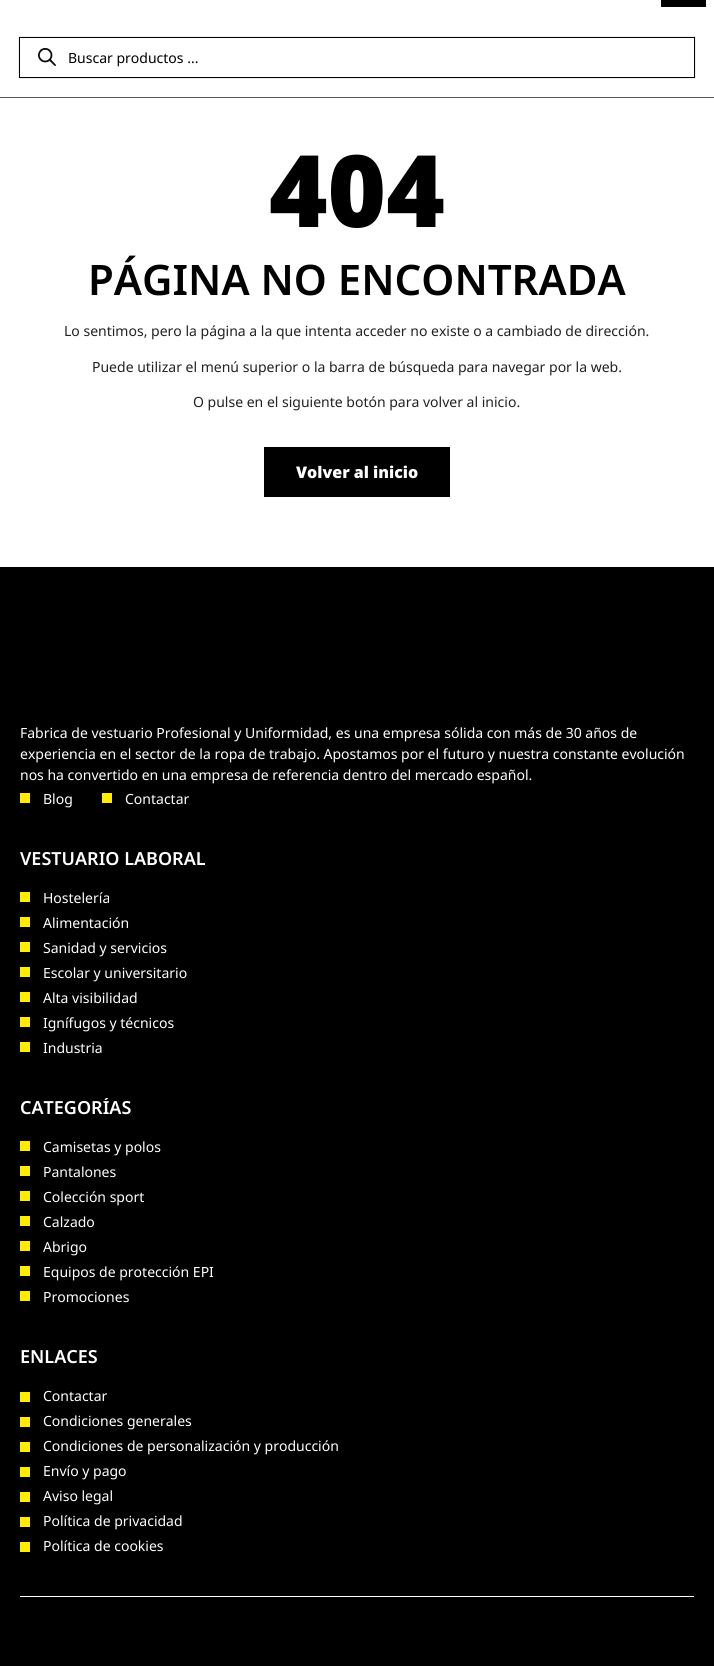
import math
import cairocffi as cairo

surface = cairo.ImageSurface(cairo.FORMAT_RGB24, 714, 1666)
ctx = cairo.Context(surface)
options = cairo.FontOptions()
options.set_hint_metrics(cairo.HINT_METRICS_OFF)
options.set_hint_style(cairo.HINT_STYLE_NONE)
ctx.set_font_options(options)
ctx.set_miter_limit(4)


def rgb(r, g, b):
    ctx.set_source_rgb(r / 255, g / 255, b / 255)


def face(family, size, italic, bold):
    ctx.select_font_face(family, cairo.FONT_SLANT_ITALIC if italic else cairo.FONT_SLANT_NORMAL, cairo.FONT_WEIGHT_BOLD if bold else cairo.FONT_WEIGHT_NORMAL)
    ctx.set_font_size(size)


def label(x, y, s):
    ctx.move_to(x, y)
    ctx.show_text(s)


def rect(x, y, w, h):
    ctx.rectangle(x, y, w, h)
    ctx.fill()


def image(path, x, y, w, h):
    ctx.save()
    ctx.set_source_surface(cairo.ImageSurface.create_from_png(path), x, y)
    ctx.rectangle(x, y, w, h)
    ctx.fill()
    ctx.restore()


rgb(255, 255, 255)
ctx.paint()
rgb(84, 89, 95)
rect(0, 97, 714, 1)
rgb(0, 0, 0)
rect(661, 0, 45, 7)
ctx.rectangle(18.5, 36.5, 677, 42)
rgb(238, 238, 238)
ctx.set_line_width(1)
ctx.stroke()
ctx.rectangle(19.5, 37.5, 675, 40)
rgb(0, 0, 0)
ctx.stroke()
image('image0.png', 38, 48, 18, 18)
face('Noto Sans', 14, 0, 0)
label(68, 63, 'Buscar productos ...')
face('Noto Sans Black', 100, 0, 0)
label(269, 227, '404')
face('Noto Sans SemiBold', 42, 0, 0)
label(88, 295, 'PÁGINA NO ENCONTRADA')
face('Noto Sans', 14, 0, 0)
rgb(34, 34, 34)
label(64, 336, 'Lo sentimos, pero la página a la que intenta acceder no existe o a cambiado de dirección.')
label(92, 372, 'Puede utilizar el menú superior o la barra de búsqueda para navegar por la web.')
label(193, 407, 'O pulse en el siguiente botón para volver al inicio.')
rgb(0, 0, 0)
rect(264, 447, 186, 50)
face('Noto Sans Black', 16, 0, 0)
rgb(255, 255, 255)
label(296, 478, 'Volver al inicio')
rgb(0, 0, 0)
rect(0, 567, 714, 1099)
face('Noto Sans', 14, 0, 0)
rgb(255, 255, 255)
label(20, 738, 'Fabrica de vestuario Profesional y Uniformidad, es una empresa sólida con más de 30 años de')
label(20, 759, 'experiencia en el sector de la ropa de trabajo. Apostamos por el futuro y nuestra constante evolución')
label(20, 780, 'nos ha convertido en una empresa de referencia dentro del mercado español.')
rgb(255, 237, 0)
rect(20, 793, 10, 10)
rgb(255, 255, 255)
label(43, 804, 'Blog')
rgb(255, 237, 0)
rect(102, 793, 10, 10)
rgb(255, 255, 255)
label(125, 804, 'Contactar')
face('Noto Sans SemiBold', 18, 0, 0)
label(20, 865, 'VESTUARIO LABORAL')
rgb(255, 237, 0)
rect(20, 892, 10, 10)
face('Noto Sans', 14, 0, 0)
rgb(255, 255, 255)
label(43, 903, 'Hostelería')
rgb(255, 237, 0)
rect(20, 917, 10, 10)
rgb(255, 255, 255)
label(43, 928, 'Alimentación')
rgb(255, 237, 0)
rect(20, 942, 10, 10)
rgb(255, 255, 255)
label(43, 953, 'Sanidad y servicios')
rgb(255, 237, 0)
rect(20, 967, 10, 10)
rgb(255, 255, 255)
label(43, 978, 'Escolar y universitario')
rgb(255, 237, 0)
rect(20, 992, 10, 10)
rgb(255, 255, 255)
label(43, 1003, 'Alta visibilidad')
rgb(255, 237, 0)
rect(20, 1017, 10, 10)
rgb(255, 255, 255)
label(43, 1028, 'Ignífugos y técnicos')
rgb(255, 237, 0)
rect(20, 1042, 10, 10)
rgb(255, 255, 255)
label(43, 1053, 'Industria')
ctx.save()
ctx.rectangle(20, 1098, 674, 18)
ctx.clip()
face('Noto Sans SemiBold', 18, 0, 0)
label(20, 1114, 'CATEGORÍAS')
ctx.restore()
rgb(255, 237, 0)
rect(20, 1141, 10, 10)
rgb(255, 255, 255)
label(43, 1152, 'Camisetas y polos')
rgb(255, 237, 0)
rect(20, 1166, 10, 10)
rgb(255, 255, 255)
label(43, 1177, 'Pantalones')
rgb(255, 237, 0)
rect(20, 1191, 10, 10)
rgb(255, 255, 255)
label(43, 1202, 'Colección sport')
rgb(255, 237, 0)
rect(20, 1216, 10, 10)
rgb(255, 255, 255)
label(43, 1227, 'Calzado')
rgb(255, 237, 0)
rect(20, 1241, 10, 10)
rgb(255, 255, 255)
label(43, 1252, 'Abrigo')
rgb(255, 237, 0)
rect(20, 1266, 10, 10)
rgb(255, 255, 255)
label(43, 1277, 'Equipos de protección EPI')
rgb(255, 237, 0)
rect(20, 1291, 10, 10)
rgb(255, 255, 255)
label(43, 1302, 'Promociones')
face('Noto Sans SemiBold', 18, 0, 0)
label(20, 1363, 'ENLACES')
rgb(255, 237, 0)
rect(20, 1392, 10, 10)
face('Noto Sans', 14, 0, 0)
rgb(255, 255, 255)
label(43, 1401, 'Contactar')
rgb(255, 237, 0)
rect(20, 1417, 10, 10)
rgb(255, 255, 255)
label(43, 1426, 'Condiciones generales')
rgb(255, 237, 0)
rect(20, 1442, 10, 10)
rgb(255, 255, 255)
label(43, 1451, 'Condiciones de personalización y producción')
rgb(255, 237, 0)
rect(20, 1467, 10, 10)
rgb(255, 255, 255)
label(43, 1476, 'Envío y pago')
rgb(255, 237, 0)
rect(20, 1492, 10, 10)
rgb(255, 255, 255)
label(43, 1501, 'Aviso legal')
rgb(255, 237, 0)
rect(20, 1517, 10, 10)
rgb(255, 255, 255)
label(43, 1526, 'Política de privacidad')
rgb(255, 237, 0)
rect(20, 1542, 10, 10)
rgb(255, 255, 255)
label(43, 1551, 'Política de cookies')
rect(20, 1596, 674, 1)
surface.write_to_png('render.png')
